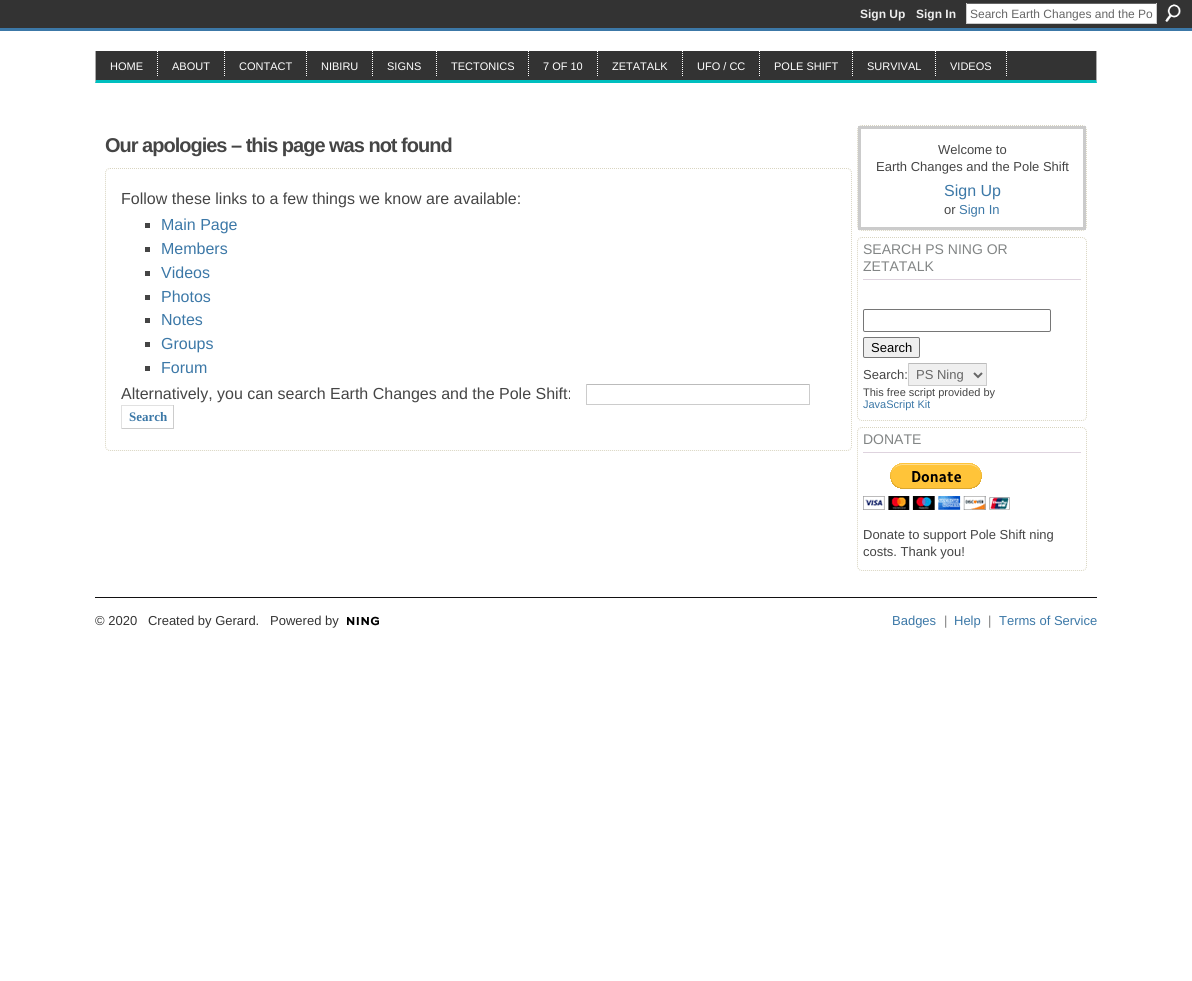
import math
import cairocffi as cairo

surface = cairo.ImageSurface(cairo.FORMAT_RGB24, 1192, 981)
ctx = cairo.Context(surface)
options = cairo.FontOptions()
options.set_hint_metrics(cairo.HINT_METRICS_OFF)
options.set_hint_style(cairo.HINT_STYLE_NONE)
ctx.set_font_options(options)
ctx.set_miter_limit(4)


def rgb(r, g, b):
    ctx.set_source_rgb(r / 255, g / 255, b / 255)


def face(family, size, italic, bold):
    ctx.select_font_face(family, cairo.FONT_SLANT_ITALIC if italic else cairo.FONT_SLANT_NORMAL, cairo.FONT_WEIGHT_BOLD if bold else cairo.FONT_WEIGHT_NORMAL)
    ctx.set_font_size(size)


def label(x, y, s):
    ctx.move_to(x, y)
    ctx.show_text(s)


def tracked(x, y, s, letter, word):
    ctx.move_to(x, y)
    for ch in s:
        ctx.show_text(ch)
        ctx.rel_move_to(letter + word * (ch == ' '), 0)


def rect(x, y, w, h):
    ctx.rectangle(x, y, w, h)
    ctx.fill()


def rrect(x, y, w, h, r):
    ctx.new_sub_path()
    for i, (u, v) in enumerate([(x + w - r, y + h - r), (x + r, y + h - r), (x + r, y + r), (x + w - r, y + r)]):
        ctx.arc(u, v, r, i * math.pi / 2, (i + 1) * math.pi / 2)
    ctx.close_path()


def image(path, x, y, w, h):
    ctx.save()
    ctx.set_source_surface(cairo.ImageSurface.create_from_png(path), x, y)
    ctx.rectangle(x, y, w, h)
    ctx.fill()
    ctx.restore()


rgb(255, 255, 255)
ctx.paint()
rgb(51, 51, 51)
rect(0, 0, 1192, 28)
face('Liberation Sans', 12, 0, 1)
rgb(238, 238, 238)
label(860, 18, 'Sign Up')
label(916, 18, 'Sign In')
rgb(255, 255, 255)
rect(967, 4, 189, 19)
rgb(102, 102, 102)
rect(966, 3, 191, 1)
rgb(204, 204, 204)
rect(1156, 3, 1, 21)
rect(966, 23, 191, 1)
rect(966, 3, 1, 21)
face('Liberation Sans', 12, 0, 0)
rgb(102, 102, 102)
label(970, 18, 'Search Earth Changes and the Po')
image('image0.png', 1165, 4, 16, 18)
rgb(60, 120, 167)
rect(0, 28, 1192, 3)
rgb(51, 51, 51)
rect(96, 51, 1000, 29)
rgb(170, 170, 170)
ctx.new_path()
ctx.move_to(1097, 51)
ctx.line_to(1097, 83)
ctx.line_to(1096, 80)
ctx.line_to(1096, 51)
ctx.close_path()
ctx.fill()
rgb(0, 191, 191)
ctx.new_path()
ctx.move_to(1097, 83)
ctx.line_to(95, 83)
ctx.line_to(96, 80)
ctx.line_to(1096, 80)
ctx.close_path()
ctx.fill()
rgb(170, 170, 170)
ctx.new_path()
ctx.move_to(95, 83)
ctx.line_to(95, 51)
ctx.line_to(96, 51)
ctx.line_to(96, 80)
ctx.close_path()
ctx.fill()
ctx.new_path()
ctx.move_to(157.5, 47)
ctx.line_to(157.5, 76)
rgb(255, 255, 255)
ctx.set_line_width(1)
ctx.set_dash([1, 1])
ctx.stroke()
face('Liberation Sans', 11, 0, 0)
label(110, 70, 'HOME')
ctx.new_path()
ctx.move_to(224.5, 47)
ctx.line_to(224.5, 76)
ctx.stroke()
label(172, 70, 'ABOUT')
ctx.new_path()
ctx.move_to(306.5, 47)
ctx.line_to(306.5, 76)
ctx.stroke()
label(239, 70, 'CONTACT')
ctx.new_path()
ctx.move_to(372.5, 47)
ctx.line_to(372.5, 76)
ctx.stroke()
label(321, 70, 'NIBIRU')
ctx.new_path()
ctx.move_to(436.5, 47)
ctx.line_to(436.5, 76)
ctx.stroke()
label(387, 70, 'SIGNS')
ctx.new_path()
ctx.move_to(528.5, 47)
ctx.line_to(528.5, 76)
ctx.stroke()
label(451, 70, 'TECTONICS')
ctx.new_path()
ctx.move_to(597.5, 47)
ctx.line_to(597.5, 76)
ctx.stroke()
label(543, 70, '7 OF 10')
ctx.new_path()
ctx.move_to(682.5, 47)
ctx.line_to(682.5, 76)
ctx.stroke()
label(612, 70, 'ZETATALK')
ctx.new_path()
ctx.move_to(759.5, 47)
ctx.line_to(759.5, 76)
ctx.stroke()
label(697, 70, 'UFO / CC')
ctx.new_path()
ctx.move_to(852.5, 47)
ctx.line_to(852.5, 76)
ctx.stroke()
label(774, 70, 'POLE SHIFT')
ctx.new_path()
ctx.move_to(935.5, 47)
ctx.line_to(935.5, 76)
ctx.stroke()
label(867, 70, 'SURVIVAL')
ctx.new_path()
ctx.move_to(1006.5, 47)
ctx.line_to(1006.5, 76)
ctx.stroke()
label(950, 70, 'VIDEOS')
face('Liberation Sans', 20, 0, 1)
rgb(69, 69, 69)
tracked(105, 152, 'Our apologies – this page was not found', -1, 0)
ctx.new_path()
ctx.move_to(110, 168.5)
ctx.line_to(847, 168.5)
ctx.curve_to(849.5, 168.5, 851.5, 170.5, 851.5, 173)
ctx.line_to(851.5, 446)
ctx.curve_to(851.5, 448.5, 849.5, 450.5, 847, 450.5)
ctx.line_to(110, 450.5)
ctx.curve_to(107.5, 450.5, 105.5, 448.5, 105.5, 446)
ctx.line_to(105.5, 173)
ctx.curve_to(105.5, 170.5, 107.5, 168.5, 110, 168.5)
ctx.close_path()
rgb(217, 213, 193)
ctx.stroke()
face('Liberation Sans', 16, 0, 0)
rgb(69, 69, 69)
label(121, 204, 'Follow these links to a few things we know are available:')
rect(145, 223, 5, 5)
rgb(60, 120, 167)
label(161, 230, 'Main Page')
rgb(69, 69, 69)
rect(145, 247, 5, 5)
rgb(60, 120, 167)
label(161, 254, 'Members')
rgb(69, 69, 69)
rect(145, 271, 5, 5)
rgb(60, 120, 167)
label(161, 278, 'Videos')
rgb(69, 69, 69)
rect(145, 295, 5, 5)
rgb(60, 120, 167)
label(161, 302, 'Photos')
rgb(69, 69, 69)
rect(145, 318, 5, 5)
rgb(60, 120, 167)
label(161, 325, 'Notes')
rgb(69, 69, 69)
rect(145, 342, 5, 5)
rgb(60, 120, 167)
label(161, 349, 'Groups')
rgb(69, 69, 69)
rect(145, 366, 5, 5)
rgb(60, 120, 167)
label(161, 373, 'Forum')
rgb(69, 69, 69)
label(121, 399, 'Alternatively, you can search Earth Changes and the Pole Shift:')
rgb(187, 187, 187)
rect(586, 384, 224, 1)
rgb(204, 204, 204)
rect(809, 384, 1, 21)
rect(586, 404, 224, 1)
rect(586, 384, 1, 21)
rgb(225, 225, 225)
rect(121, 405, 53, 1)
rgb(204, 204, 204)
rect(173, 405, 1, 24)
rect(121, 428, 53, 1)
rgb(225, 225, 225)
rect(121, 405, 1, 24)
face('Liberation Serif', 13, 0, 1)
rgb(60, 120, 167)
label(129, 421, 'Search')
ctx.new_path()
ctx.move_to(862, 125.5)
ctx.line_to(1082, 125.5)
ctx.curve_to(1084.5, 125.5, 1086.5, 127.5, 1086.5, 130)
ctx.line_to(1086.5, 226)
ctx.curve_to(1086.5, 228.5, 1084.5, 230.5, 1082, 230.5)
ctx.line_to(862, 230.5)
ctx.curve_to(859.5, 230.5, 857.5, 228.5, 857.5, 226)
ctx.line_to(857.5, 130)
ctx.curve_to(857.5, 127.5, 859.5, 125.5, 862, 125.5)
ctx.close_path()
rgb(217, 213, 193)
ctx.stroke()
ctx.rectangle(859.5, 127.5, 225, 101)
rgb(203, 203, 203)
ctx.set_line_width(3)
ctx.set_dash([])
ctx.stroke()
face('Liberation Sans', 13, 0, 0)
rgb(69, 69, 69)
label(938, 154, 'Welcome to')
label(876, 171, 'Earth Changes and the Pole Shift')
face('Liberation Sans', 16, 0, 0)
rgb(60, 120, 167)
label(944, 196, 'Sign Up')
face('Liberation Sans', 13, 0, 0)
rgb(69, 69, 69)
label(944, 214, 'or')
rgb(60, 120, 167)
label(959, 214, 'Sign In')
ctx.new_path()
ctx.move_to(862, 237.5)
ctx.line_to(1082, 237.5)
ctx.curve_to(1084.5, 237.5, 1086.5, 239.5, 1086.5, 242)
ctx.line_to(1086.5, 416)
ctx.curve_to(1086.5, 418.5, 1084.5, 420.5, 1082, 420.5)
ctx.line_to(862, 420.5)
ctx.curve_to(859.5, 420.5, 857.5, 418.5, 857.5, 416)
ctx.line_to(857.5, 242)
ctx.curve_to(857.5, 239.5, 859.5, 237.5, 862, 237.5)
ctx.close_path()
rgb(217, 213, 193)
ctx.set_line_width(1)
ctx.set_dash([1, 1])
ctx.stroke()
rgb(222, 211, 222)
rect(863, 279, 218, 1)
face('Liberation Sans', 14, 0, 0)
rgb(130, 133, 133)
label(863, 254, 'SEARCH PS NING OR')
label(863, 271, 'ZETATALK')
rrect(863.5, 309.5, 187, 22, 1.5)
rgb(118, 118, 118)
ctx.set_dash([])
ctx.stroke()
rgb(239, 239, 239)
rrect(863.5, 337.5, 56, 20, 1.5)
ctx.fill_preserve()
rgb(118, 118, 118)
ctx.stroke()
face('Liberation Sans', 13, 0, 0)
rgb(0, 0, 0)
label(871, 352, 'Search')
rgb(69, 69, 69)
label(863, 379, 'Search:')
rgb(239, 239, 239)
rect(909, 364, 77, 21)
rgb(187, 187, 187)
rect(908, 363, 79, 1)
rgb(204, 204, 204)
rect(986, 363, 1, 23)
rect(908, 385, 79, 1)
rect(908, 363, 1, 23)
ctx.new_path()
ctx.move_to(974, 373)
ctx.line_to(978, 377)
ctx.line_to(982, 373)
rgb(102, 102, 102)
ctx.set_line_width(2)
ctx.stroke()
label(916, 379, 'PS Ning')
face('Liberation Sans', 11, 0, 0)
rgb(69, 69, 69)
label(863, 396, 'This free script provided by')
rgb(60, 120, 167)
label(863, 408, 'JavaScript Kit')
ctx.new_path()
ctx.move_to(862, 427.5)
ctx.line_to(1082, 427.5)
ctx.curve_to(1084.5, 427.5, 1086.5, 429.5, 1086.5, 432)
ctx.line_to(1086.5, 566)
ctx.curve_to(1086.5, 568.5, 1084.5, 570.5, 1082, 570.5)
ctx.line_to(862, 570.5)
ctx.curve_to(859.5, 570.5, 857.5, 568.5, 857.5, 566)
ctx.line_to(857.5, 432)
ctx.curve_to(857.5, 429.5, 859.5, 427.5, 862, 427.5)
ctx.close_path()
rgb(217, 213, 193)
ctx.set_line_width(1)
ctx.set_dash([1, 1])
ctx.stroke()
rgb(222, 211, 222)
rect(863, 452, 218, 1)
face('Liberation Sans', 14, 0, 0)
rgb(130, 133, 133)
label(863, 444, 'DONATE')
image('image1.png', 863, 463, 147, 47)
face('Liberation Sans', 13, 0, 0)
rgb(69, 69, 69)
label(863, 539, 'Donate to support Pole Shift ning')
label(863, 556, 'costs. Thank you!')
rgb(18, 17, 18)
rect(95, 597, 1002, 1)
rgb(51, 51, 51)
label(95, 625, '© 2020   Created by Gerard.   Powered by')
image('image2.png', 347, 616, 32, 10)
rgb(60, 120, 167)
label(892, 625, 'Badges')
rgb(127, 127, 127)
label(944, 625, '|')
rgb(60, 120, 167)
label(954, 625, 'Help')
rgb(127, 127, 127)
label(988, 625, '|')
rgb(60, 120, 167)
label(999, 625, 'Terms of Service')
surface.write_to_png('render.png')
